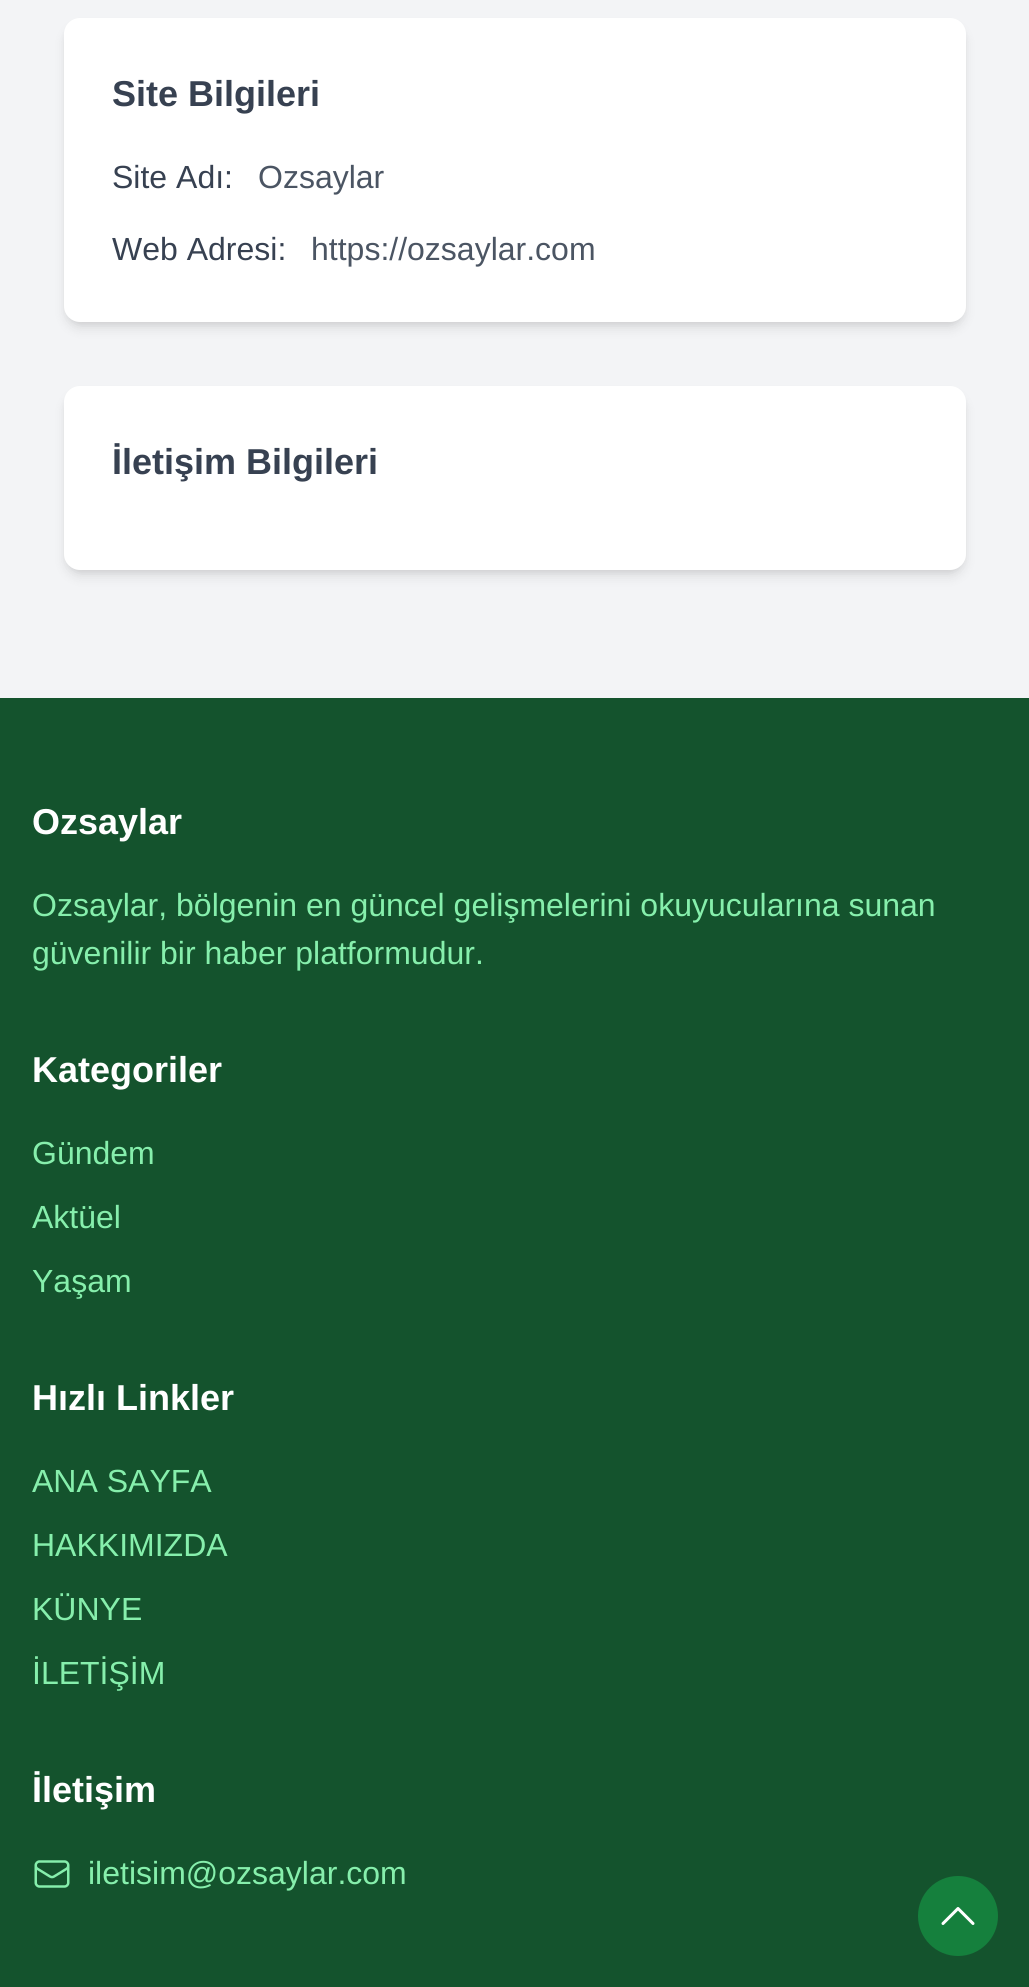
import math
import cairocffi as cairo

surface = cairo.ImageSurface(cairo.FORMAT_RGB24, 1029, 1987)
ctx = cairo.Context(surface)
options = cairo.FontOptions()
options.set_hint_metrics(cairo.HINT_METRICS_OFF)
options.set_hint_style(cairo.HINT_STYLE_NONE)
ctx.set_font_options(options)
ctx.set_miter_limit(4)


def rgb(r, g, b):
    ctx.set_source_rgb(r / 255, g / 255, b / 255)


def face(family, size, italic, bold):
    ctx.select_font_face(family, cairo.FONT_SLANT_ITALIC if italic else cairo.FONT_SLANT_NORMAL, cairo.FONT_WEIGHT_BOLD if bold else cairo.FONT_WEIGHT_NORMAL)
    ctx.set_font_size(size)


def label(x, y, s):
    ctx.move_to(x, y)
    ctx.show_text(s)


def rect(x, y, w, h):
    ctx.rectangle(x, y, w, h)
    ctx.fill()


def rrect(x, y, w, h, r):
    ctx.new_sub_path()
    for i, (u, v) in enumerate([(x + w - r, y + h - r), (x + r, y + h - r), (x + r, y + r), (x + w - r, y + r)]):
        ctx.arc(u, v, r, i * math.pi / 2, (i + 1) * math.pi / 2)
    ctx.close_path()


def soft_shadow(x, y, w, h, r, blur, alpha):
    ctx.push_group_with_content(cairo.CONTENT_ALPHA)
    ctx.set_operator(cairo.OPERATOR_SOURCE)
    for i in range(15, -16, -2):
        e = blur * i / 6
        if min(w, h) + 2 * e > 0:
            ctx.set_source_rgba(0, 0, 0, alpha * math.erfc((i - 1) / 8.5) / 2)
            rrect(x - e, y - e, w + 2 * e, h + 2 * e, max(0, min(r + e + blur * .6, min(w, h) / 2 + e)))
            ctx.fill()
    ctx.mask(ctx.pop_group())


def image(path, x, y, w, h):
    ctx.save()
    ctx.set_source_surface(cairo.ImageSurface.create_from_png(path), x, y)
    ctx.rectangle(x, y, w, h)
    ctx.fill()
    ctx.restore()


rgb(243, 244, 246)
ctx.paint()
rgb(0, 0, 0)
soft_shadow(68, 26, 894, 296, 12, 4, 0.1)
soft_shadow(66, 28, 898, 300, 14, 6, 0.1)
rgb(255, 255, 255)
rrect(64, 18, 902, 304, 16)
ctx.fill()
face('Liberation Sans', 36, 0, 1)
rgb(55, 65, 81)
label(112, 106, 'Site Bilgileri')
face('Liberation Sans', 32, 0, 0)
label(112, 188, 'Site Adı:')
rgb(75, 85, 99)
label(258, 188, 'Ozsaylar')
rgb(55, 65, 81)
label(112, 260, 'Web Adresi:')
rgb(75, 85, 99)
label(311, 260, 'https://ozsaylar.com')
rgb(0, 0, 0)
soft_shadow(68, 394, 894, 176, 12, 4, 0.1)
soft_shadow(66, 396, 898, 180, 14, 6, 0.1)
rgb(255, 255, 255)
rrect(64, 386, 902, 184, 16)
ctx.fill()
face('Liberation Sans', 36, 0, 1)
rgb(55, 65, 81)
label(112, 474, 'İletişim Bilgileri')
rgb(20, 83, 45)
rect(0, 698, 1029, 1289)
rgb(255, 255, 255)
label(32, 834, 'Ozsaylar')
face('Liberation Sans', 32, 0, 0)
rgb(134, 239, 172)
label(32, 916, 'Ozsaylar, bölgenin en güncel gelişmelerini okuyucularına sunan')
label(32, 964, 'güvenilir bir haber platformudur.')
face('Liberation Sans', 36, 0, 1)
rgb(255, 255, 255)
label(32, 1082, 'Kategoriler')
face('Liberation Sans', 32, 0, 0)
rgb(134, 239, 172)
label(32, 1164, 'Gündem')
label(32, 1228, 'Aktüel')
label(32, 1292, 'Yaşam')
face('Liberation Sans', 36, 0, 1)
rgb(255, 255, 255)
label(32, 1410, 'Hızlı Linkler')
face('Liberation Sans', 32, 0, 0)
rgb(134, 239, 172)
label(32, 1492, 'ANA SAYFA')
label(32, 1556, 'HAKKIMIZDA')
label(32, 1620, 'KÜNYE')
label(32, 1684, 'İLETİŞİM')
face('Liberation Sans', 36, 0, 1)
rgb(255, 255, 255)
label(32, 1802, 'İletişim')
image('image0.png', 34, 1860, 36, 28)
face('Liberation Sans', 32, 0, 0)
rgb(134, 239, 172)
label(88, 1884, 'iletisim@ozsaylar.com')
rgb(21, 128, 61)
ctx.new_path()
ctx.arc(958, 1916, 40, 0, 2 * math.pi)
ctx.fill()
ctx.new_path()
ctx.move_to(943, 1923.5)
ctx.line_to(958, 1908.5)
ctx.line_to(973, 1923.5)
rgb(255, 255, 255)
ctx.set_line_width(3)
ctx.set_line_cap(cairo.LINE_CAP_ROUND)
ctx.set_line_join(cairo.LINE_JOIN_ROUND)
ctx.stroke()
surface.write_to_png('render.png')
